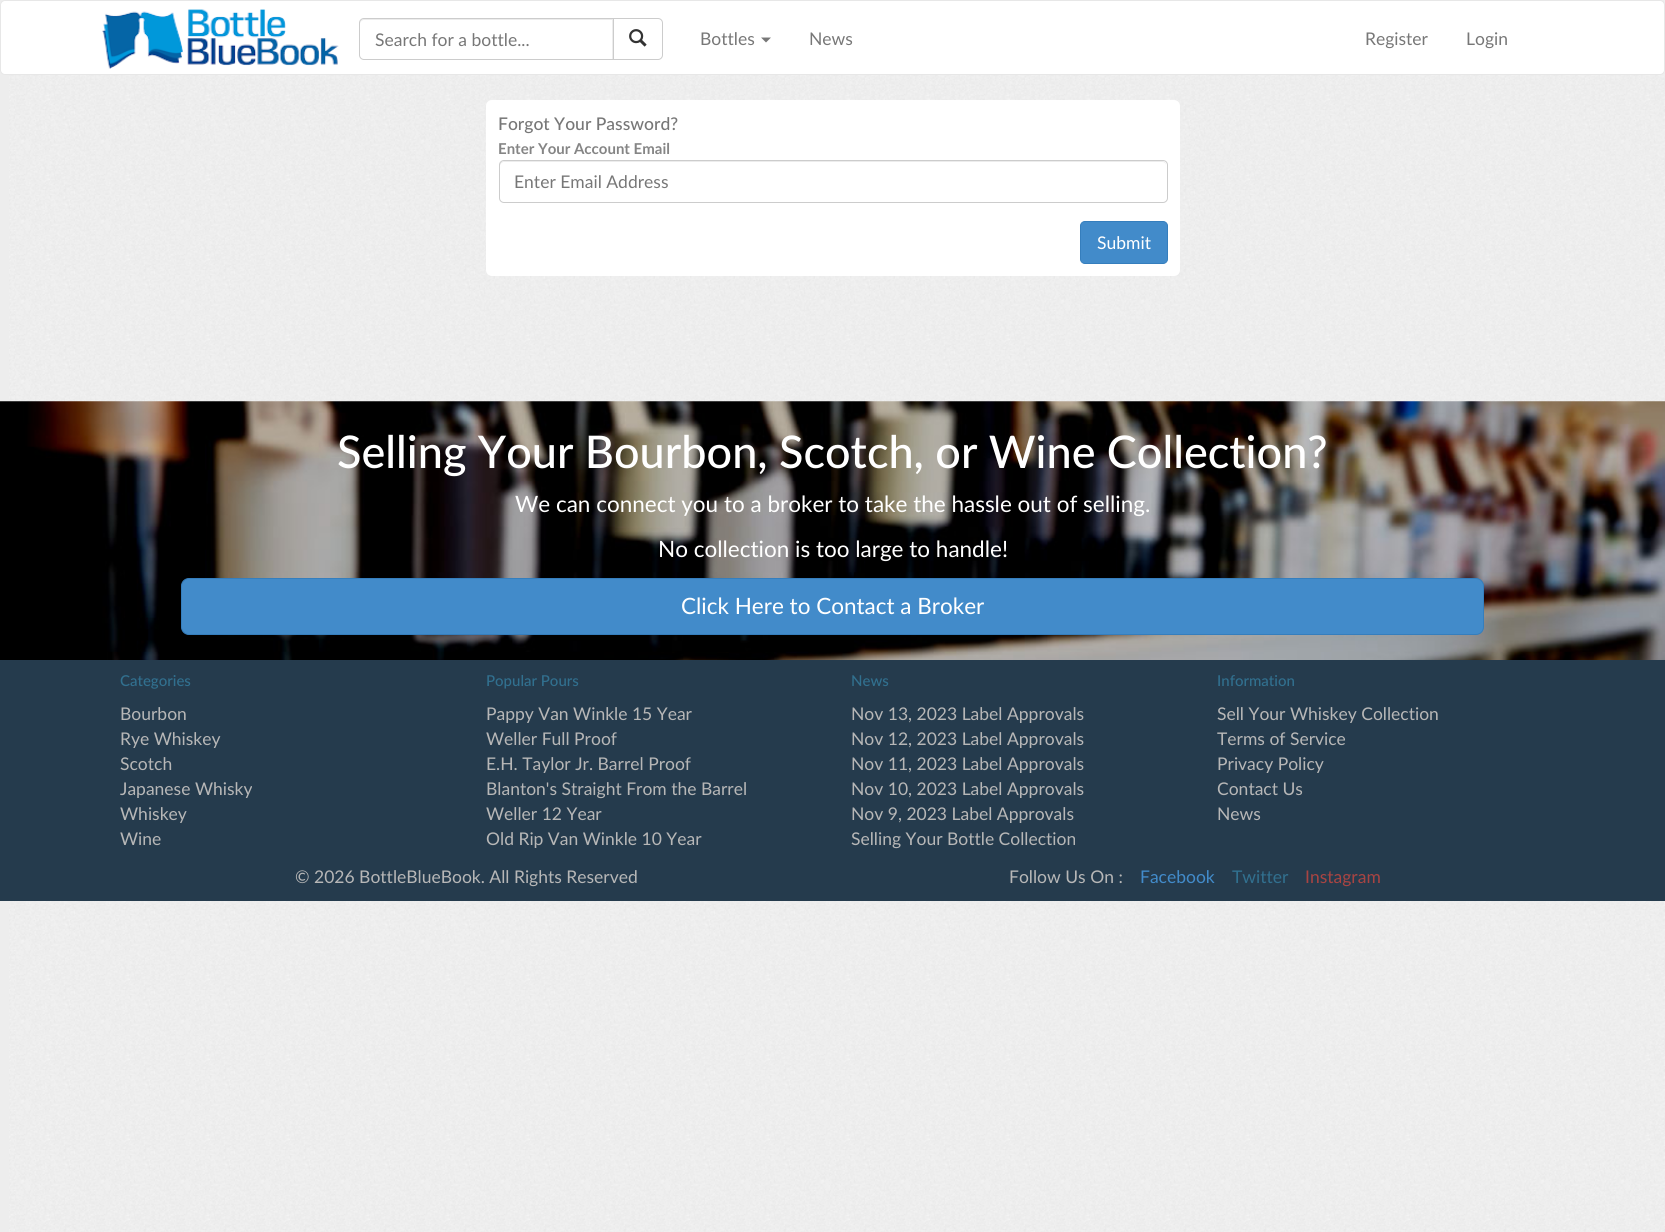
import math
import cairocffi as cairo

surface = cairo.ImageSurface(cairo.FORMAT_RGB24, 1665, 1232)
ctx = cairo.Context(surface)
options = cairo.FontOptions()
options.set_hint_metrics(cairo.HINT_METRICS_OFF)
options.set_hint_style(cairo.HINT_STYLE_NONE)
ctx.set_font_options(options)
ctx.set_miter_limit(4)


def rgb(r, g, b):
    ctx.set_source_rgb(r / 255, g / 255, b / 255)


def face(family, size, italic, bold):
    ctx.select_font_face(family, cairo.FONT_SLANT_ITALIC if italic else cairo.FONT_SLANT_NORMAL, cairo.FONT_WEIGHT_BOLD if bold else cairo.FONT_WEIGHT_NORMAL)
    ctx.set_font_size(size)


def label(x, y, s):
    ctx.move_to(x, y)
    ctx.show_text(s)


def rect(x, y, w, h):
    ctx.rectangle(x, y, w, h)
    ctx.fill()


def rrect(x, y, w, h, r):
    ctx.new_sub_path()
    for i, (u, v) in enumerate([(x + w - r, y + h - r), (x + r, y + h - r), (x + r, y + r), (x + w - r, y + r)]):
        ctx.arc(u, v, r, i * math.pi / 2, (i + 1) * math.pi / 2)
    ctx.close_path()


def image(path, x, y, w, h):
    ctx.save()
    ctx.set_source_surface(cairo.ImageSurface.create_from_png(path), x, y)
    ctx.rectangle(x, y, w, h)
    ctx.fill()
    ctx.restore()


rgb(237, 237, 237)
ctx.paint()
image('image0.png', 9, 70, 1656, 1162)
rgb(255, 255, 255)
rrect(0.5, 0.5, 1664, 74, 4.5)
ctx.fill_preserve()
rgb(231, 231, 231)
ctx.set_line_width(1)
ctx.stroke()
image('image1.png', 102, 9, 237, 60)
ctx.new_path()
ctx.move_to(613.5, 18.5)
ctx.line_to(658, 18.5)
ctx.curve_to(660.5, 18.5, 662.5, 20.5, 662.5, 23)
ctx.line_to(662.5, 55)
ctx.curve_to(662.5, 57.5, 660.5, 59.5, 658, 59.5)
ctx.line_to(613.5, 59.5)
ctx.close_path()
rgb(204, 204, 204)
ctx.stroke()
rgb(255, 255, 255)
ctx.new_path()
ctx.move_to(364, 18)
ctx.line_to(614, 18)
ctx.line_to(614, 60)
ctx.line_to(364, 60)
ctx.curve_to(361, 60, 359, 58, 359, 55)
ctx.line_to(359, 23)
ctx.curve_to(359, 20, 361, 18, 364, 18)
ctx.close_path()
ctx.fill()
rgb(236, 236, 236)
ctx.new_path()
ctx.move_to(364, 20)
ctx.line_to(612, 20)
ctx.line_to(612, 59)
ctx.line_to(613, 59)
ctx.line_to(613, 19)
ctx.line_to(364, 19)
ctx.curve_to(362, 19, 360, 21, 360, 23)
ctx.line_to(360, 24)
ctx.curve_to(360, 22, 362, 20, 364, 20)
ctx.close_path()
ctx.fill()
ctx.new_path()
ctx.move_to(364, 18.5)
ctx.line_to(613.5, 18.5)
ctx.line_to(613.5, 59.5)
ctx.line_to(364, 59.5)
ctx.curve_to(361.5, 59.5, 359.5, 57.5, 359.5, 55)
ctx.line_to(359.5, 23)
ctx.curve_to(359.5, 20.5, 361.5, 18.5, 364, 18.5)
ctx.close_path()
rgb(204, 204, 204)
ctx.stroke()
face('Lato', 17.5, 0, 0)
rgb(119, 119, 119)
label(375, 46, 'Search for a bottle...')
image('image2.png', 629, 29, 18, 18)
label(700, 45, 'Bottles')
ctx.new_path()
ctx.move_to(761, 37.5)
ctx.line_to(771, 37.5)
ctx.line_to(766, 42.5)
ctx.close_path()
ctx.fill()
label(809, 45, 'News')
label(1365, 45, 'Register')
label(1466, 45, 'Login')
rgb(255, 255, 255)
rrect(486, 100, 694, 176, 6)
ctx.fill()
face('Lato Medium', 17.5, 0, 0)
rgb(119, 119, 119)
label(498, 130, 'Forgot Your Password?')
face('Lato', 15, 0, 1)
rgb(133, 133, 133)
label(498, 154, 'Enter Your Account Email')
rgb(236, 236, 236)
ctx.new_path()
ctx.move_to(504, 162)
ctx.line_to(1162, 162)
ctx.curve_to(1165, 162, 1166, 164, 1166, 166)
ctx.curve_to(1166, 163, 1165, 161, 1162, 161)
ctx.line_to(504, 161)
ctx.line_to(501, 162)
ctx.line_to(500, 163)
ctx.line_to(500, 166)
ctx.curve_to(500, 164, 502, 162, 504, 162)
ctx.close_path()
ctx.fill()
rrect(499.5, 160.5, 668, 42, 4.5)
rgb(204, 204, 204)
ctx.stroke()
face('Lato', 17.5, 0, 0)
rgb(119, 119, 119)
label(514, 188, 'Enter Email Address')
rgb(66, 139, 202)
rrect(1080.5, 221.5, 87, 42, 4.5)
ctx.fill_preserve()
rgb(53, 126, 189)
ctx.stroke()
rgb(255, 255, 255)
label(1097, 249, 'Submit')
image('image3.png', 0, 401, 1665, 259)
face('Lato Medium', 45, 0, 0)
label(337, 468, 'Selling Your Bourbon, Scotch, or Wine Collection?')
face('Lato', 22.5, 0, 0)
label(515, 512, 'We can connect you to a broker to take the hassle out of selling.')
label(658, 557, 'No collection is too large to handle!')
rgb(66, 139, 202)
rrect(181.5, 578.5, 1302, 56, 7.5)
ctx.fill_preserve()
rgb(53, 126, 189)
ctx.stroke()
rgb(255, 255, 255)
label(681, 614, 'Click Here to Contact a Broker')
rgb(37, 59, 77)
rect(0, 660, 1665, 241)
face('Lato Medium', 15, 0, 0)
rgb(49, 112, 143)
label(120, 686, 'Categories')
face('Lato', 17.5, 0, 0)
rgb(183, 183, 183)
label(120, 720, 'Bourbon')
label(120, 745, 'Rye Whiskey')
label(120, 770, 'Scotch')
label(120, 795, 'Japanese Whisky')
label(120, 820, 'Whiskey')
label(120, 845, 'Wine')
face('Lato Medium', 15, 0, 0)
rgb(49, 112, 143)
label(486, 686, 'Popular Pours')
face('Lato', 17.5, 0, 0)
rgb(183, 183, 183)
label(486, 720, 'Pappy Van Winkle 15 Year')
label(486, 745, 'Weller Full Proof')
label(486, 770, 'E.H. Taylor Jr. Barrel Proof')
label(486, 795, 'Blanton\'s Straight From the Barrel')
label(486, 820, 'Weller 12 Year')
label(486, 845, 'Old Rip Van Winkle 10 Year')
face('Lato Medium', 15, 0, 0)
rgb(49, 112, 143)
label(851, 686, 'News')
face('Lato', 17.5, 0, 0)
rgb(183, 183, 183)
label(851, 720, 'Nov 13, 2023 Label Approvals')
label(851, 745, 'Nov 12, 2023 Label Approvals')
label(851, 770, 'Nov 11, 2023 Label Approvals')
label(851, 795, 'Nov 10, 2023 Label Approvals')
label(851, 820, 'Nov 9, 2023 Label Approvals')
label(851, 845, 'Selling Your Bottle Collection')
face('Lato Medium', 15, 0, 0)
rgb(49, 112, 143)
label(1217, 686, 'Information')
face('Lato', 17.5, 0, 0)
rgb(183, 183, 183)
label(1217, 720, 'Sell Your Whiskey Collection')
label(1217, 745, 'Terms of Service')
label(1217, 770, 'Privacy Policy')
label(1217, 795, 'Contact Us')
label(1217, 820, 'News')
label(295, 883, '© 2026 BottleBlueBook. All Rights Reserved')
label(1009, 883, 'Follow Us On :')
rgb(66, 139, 202)
label(1140, 883, 'Facebook')
rgb(49, 112, 143)
label(1232, 883, 'Twitter')
rgb(169, 68, 66)
label(1305, 883, 'Instagram')
surface.write_to_png('render.png')
